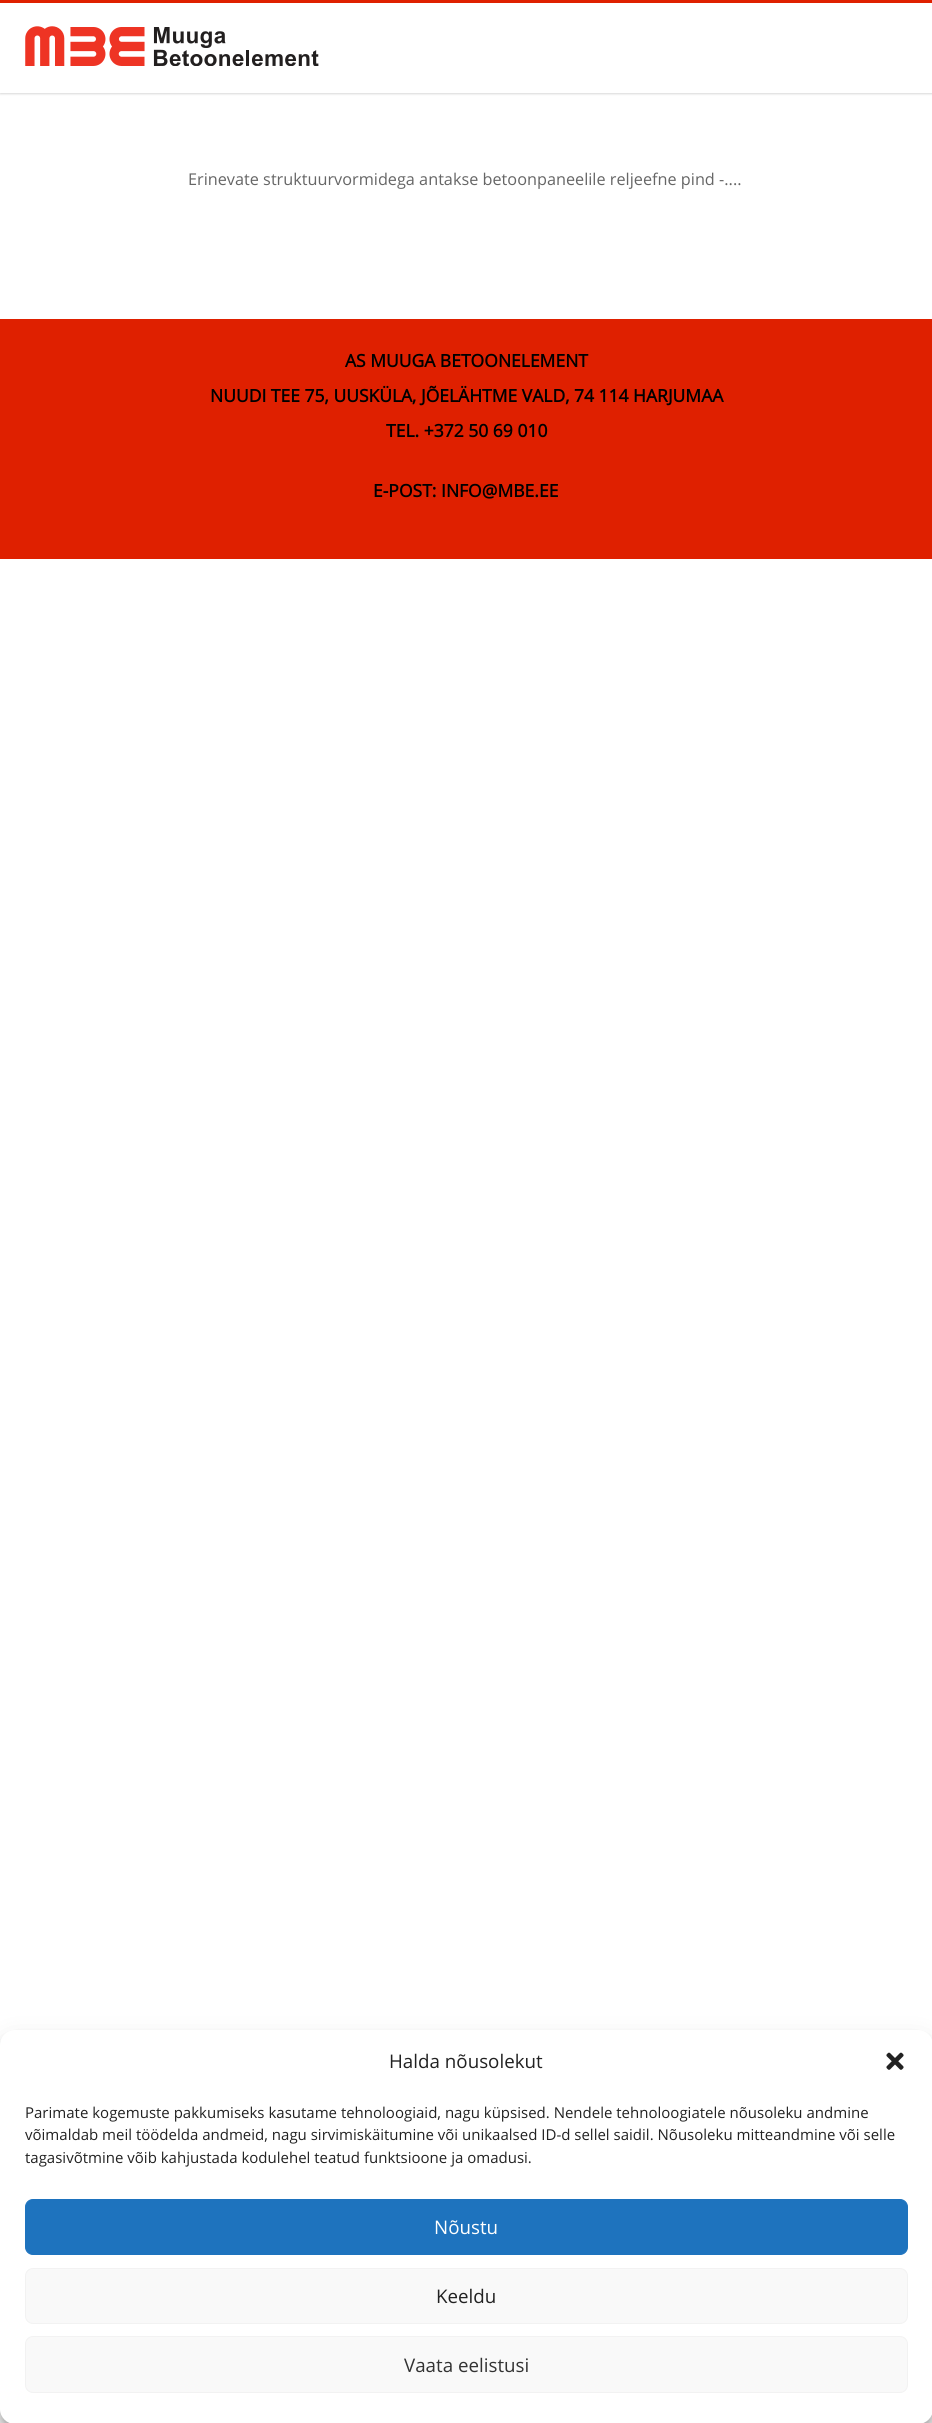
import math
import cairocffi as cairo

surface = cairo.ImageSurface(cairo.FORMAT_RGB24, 932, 2423)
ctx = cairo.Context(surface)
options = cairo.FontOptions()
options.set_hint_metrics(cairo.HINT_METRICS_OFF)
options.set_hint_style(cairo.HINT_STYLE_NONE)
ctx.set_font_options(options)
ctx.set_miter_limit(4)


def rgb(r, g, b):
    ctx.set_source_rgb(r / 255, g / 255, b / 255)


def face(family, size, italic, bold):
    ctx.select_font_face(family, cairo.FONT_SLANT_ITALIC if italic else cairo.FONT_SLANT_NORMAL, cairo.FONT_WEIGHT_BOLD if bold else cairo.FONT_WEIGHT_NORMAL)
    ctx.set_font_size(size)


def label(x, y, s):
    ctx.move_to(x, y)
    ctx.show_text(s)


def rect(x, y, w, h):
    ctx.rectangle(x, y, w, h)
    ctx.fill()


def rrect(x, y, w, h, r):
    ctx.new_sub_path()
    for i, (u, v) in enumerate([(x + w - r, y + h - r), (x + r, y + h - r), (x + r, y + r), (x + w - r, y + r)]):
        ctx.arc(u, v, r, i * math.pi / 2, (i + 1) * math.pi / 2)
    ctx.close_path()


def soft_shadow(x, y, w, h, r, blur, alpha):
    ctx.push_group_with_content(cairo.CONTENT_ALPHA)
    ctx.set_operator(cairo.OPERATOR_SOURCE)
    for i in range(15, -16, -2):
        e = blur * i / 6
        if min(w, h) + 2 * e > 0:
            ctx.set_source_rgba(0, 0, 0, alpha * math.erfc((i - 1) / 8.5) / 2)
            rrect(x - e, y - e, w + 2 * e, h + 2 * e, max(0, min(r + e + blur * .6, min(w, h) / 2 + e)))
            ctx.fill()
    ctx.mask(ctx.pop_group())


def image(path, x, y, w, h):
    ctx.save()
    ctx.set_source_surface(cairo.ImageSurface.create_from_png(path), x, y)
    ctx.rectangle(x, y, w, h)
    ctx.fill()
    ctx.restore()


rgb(255, 255, 255)
ctx.paint()
rgb(0, 0, 0)
soft_shadow(0, 1, 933, 93, 0, 1, 0.15)
rgb(255, 255, 255)
rect(0, 3, 932, 90)
rgb(223, 32, 0)
rect(0, 0, 932, 3)
image('image0.png', 25, 26, 294, 40)
face('Open Sans', 16.25, 0, 0)
rgb(102, 102, 102)
label(188, 185, 'Erinevate struktuurvormidega antakse betoonpaneelile reljeefne pind -....')
rgb(223, 32, 0)
rect(0, 319, 932, 240)
face('Open Sans', 17.5, 0, 1)
rgb(0, 0, 0)
label(345, 367, 'AS MUUGA BETOONELEMENT')
label(210, 402, 'NUUDI TEE 75, UUSKÜLA, JÕELÄHTME VALD, 74 114 HARJUMAA')
label(386, 437, 'TEL. +372 50 69 010')
label(373, 497, 'E-POST: INFO@MBE.EE')
rgb(0, 0, 0)
soft_shadow(0, 2038, 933, 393, 15, 4, 0.23)
soft_shadow(0, 2043, 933, 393, 15, 12.5, 0.19)
rgb(255, 255, 255)
rrect(0, 2030, 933, 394, 15)
ctx.fill()
face('Open Sans', 18.75, 0, 0)
rgb(34, 34, 34)
label(389, 2068, 'Halda nõusolekut')
image('image1.png', 886, 2052, 18, 18)
face('Open Sans', 15, 0, 0)
label(25, 2118, 'Parimate kogemuste pakkumiseks kasutame tehnoloogiaid, nagu küpsised. Nendele tehnoloogiatele nõusoleku andmine')
label(25, 2140, 'võimaldab meil töödelda andmeid, nagu sirvimiskäitumine või unikaalsed ID-d sellel saidil. Nõusoleku mitteandmine või selle')
label(25, 2163, 'tagasivõtmine võib kahjustada kodulehel teatud funktsioone ja omadusi.')
rgb(30, 115, 190)
rrect(25.5, 2199.5, 882, 55, 7.5)
ctx.fill_preserve()
ctx.set_line_width(1)
ctx.stroke()
face('Open Sans', 18.75, 0, 0)
rgb(255, 255, 255)
label(434, 2234, 'Nõustu')
rgb(249, 249, 249)
rrect(25.5, 2268.5, 882, 55, 7.5)
ctx.fill_preserve()
rgb(242, 242, 242)
ctx.stroke()
rgb(34, 34, 34)
label(436, 2303, 'Keeldu')
rgb(249, 249, 249)
rrect(25.5, 2336.5, 882, 56, 7.5)
ctx.fill_preserve()
rgb(242, 242, 242)
ctx.stroke()
rgb(51, 51, 51)
label(404, 2372, 'Vaata eelistusi')
surface.write_to_png('render.png')
